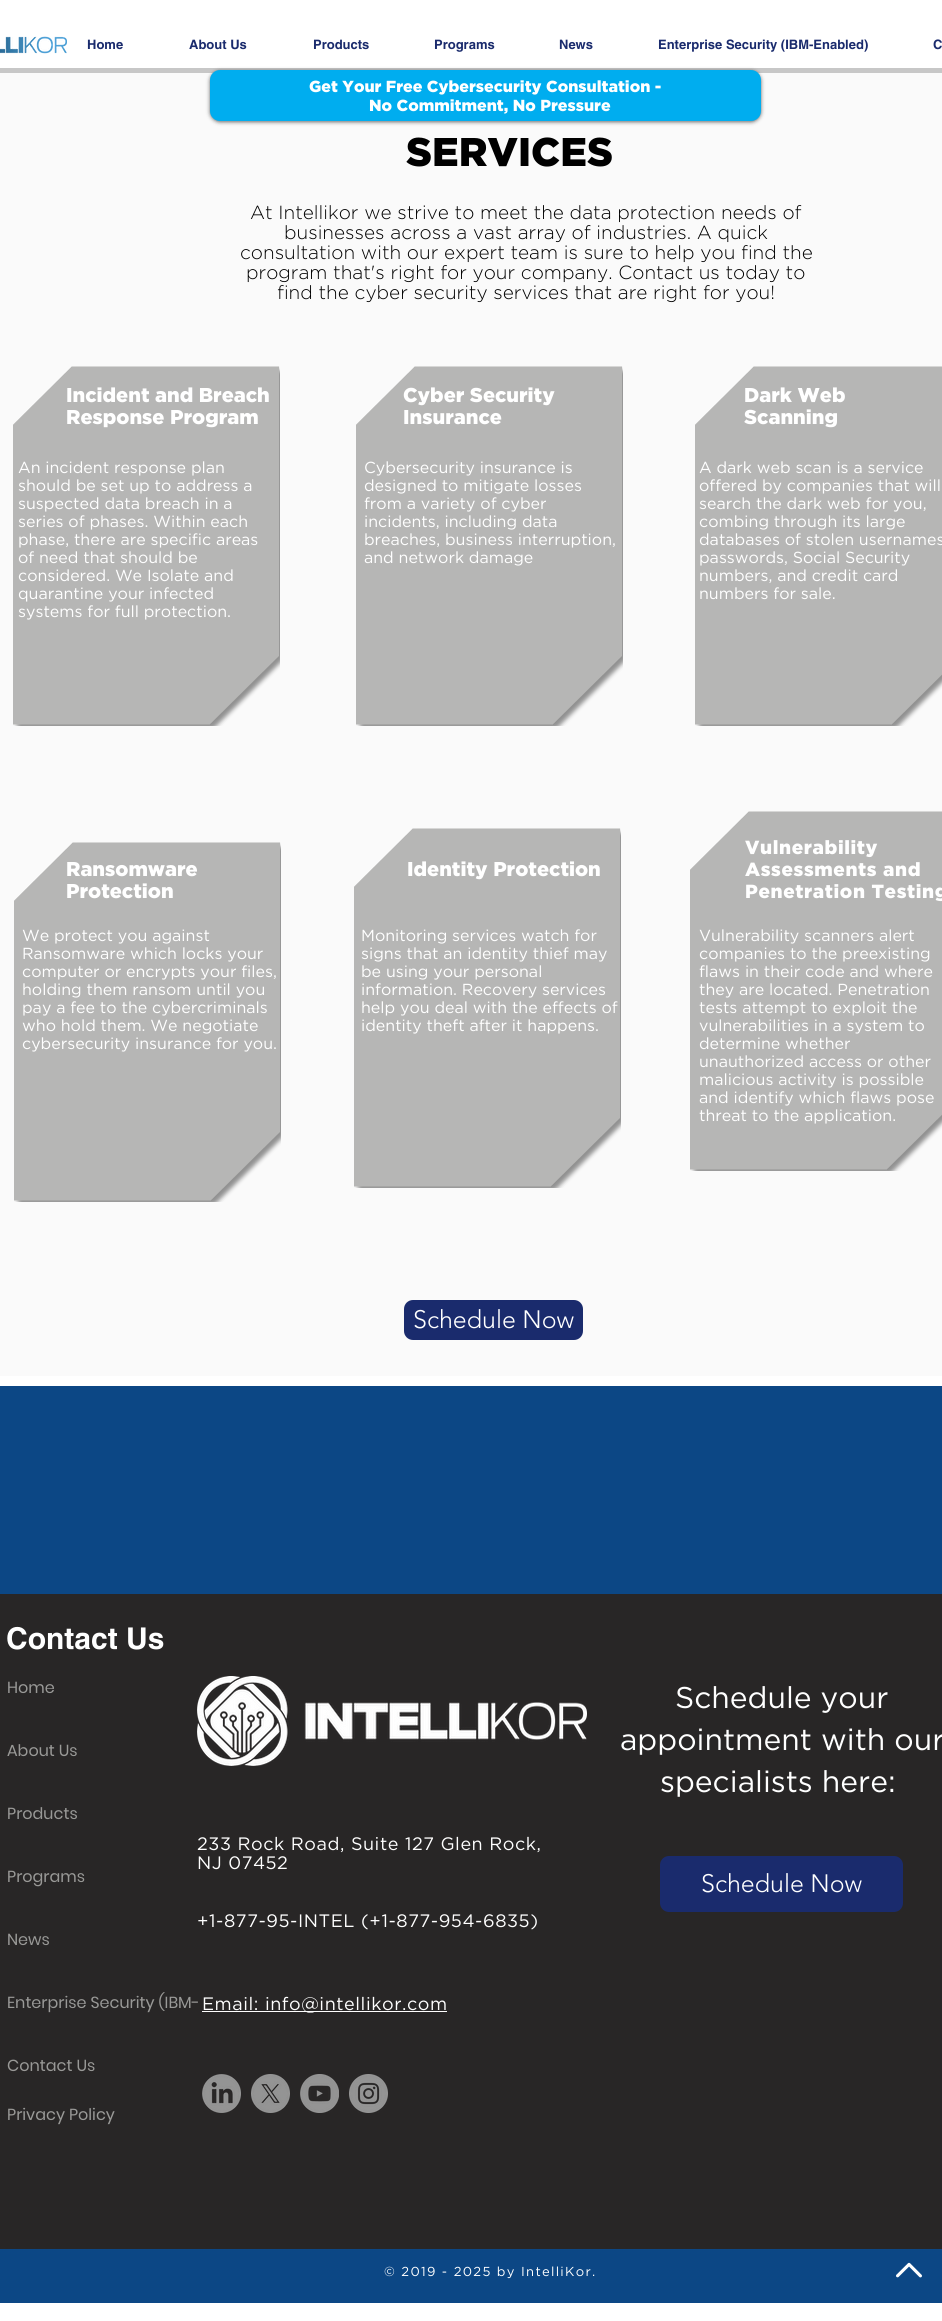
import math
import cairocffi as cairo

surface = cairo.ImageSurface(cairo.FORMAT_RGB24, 942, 2321)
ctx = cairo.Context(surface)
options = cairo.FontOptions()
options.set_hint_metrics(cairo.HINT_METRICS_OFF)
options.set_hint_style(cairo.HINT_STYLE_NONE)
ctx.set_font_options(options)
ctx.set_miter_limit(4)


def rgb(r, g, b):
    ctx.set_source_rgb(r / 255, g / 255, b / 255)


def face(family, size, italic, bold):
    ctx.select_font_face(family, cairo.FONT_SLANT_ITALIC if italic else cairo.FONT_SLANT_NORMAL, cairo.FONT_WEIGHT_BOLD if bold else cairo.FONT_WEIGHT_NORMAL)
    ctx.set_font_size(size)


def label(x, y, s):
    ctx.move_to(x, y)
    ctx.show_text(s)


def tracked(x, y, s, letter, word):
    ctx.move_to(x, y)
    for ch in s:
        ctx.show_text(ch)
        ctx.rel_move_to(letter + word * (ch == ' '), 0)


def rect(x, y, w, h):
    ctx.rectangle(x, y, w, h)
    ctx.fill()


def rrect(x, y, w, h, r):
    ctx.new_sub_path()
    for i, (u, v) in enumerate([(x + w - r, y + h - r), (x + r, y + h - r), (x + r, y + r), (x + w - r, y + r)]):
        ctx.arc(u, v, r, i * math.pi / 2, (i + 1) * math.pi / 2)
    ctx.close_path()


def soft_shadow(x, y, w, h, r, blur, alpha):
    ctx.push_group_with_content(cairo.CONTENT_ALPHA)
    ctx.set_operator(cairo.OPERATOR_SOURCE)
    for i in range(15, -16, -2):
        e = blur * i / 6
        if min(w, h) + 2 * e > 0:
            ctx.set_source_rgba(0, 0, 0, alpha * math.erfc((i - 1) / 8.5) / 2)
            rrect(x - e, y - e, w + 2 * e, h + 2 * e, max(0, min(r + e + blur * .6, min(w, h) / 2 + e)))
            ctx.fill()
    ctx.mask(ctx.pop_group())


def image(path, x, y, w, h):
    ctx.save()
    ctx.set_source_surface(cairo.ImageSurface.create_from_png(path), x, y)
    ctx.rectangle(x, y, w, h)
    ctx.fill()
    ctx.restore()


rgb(255, 255, 255)
ctx.paint()
image('image0.png', 0, 36, 67, 18)
face('helvetica', 13, 0, 1)
rgb(26, 43, 109)
label(87, 49, 'Home')
label(189, 49, 'About Us')
label(313, 49, 'Products')
label(434, 49, 'Programs')
label(559, 49, 'News')
label(658, 49, 'Enterprise Security (IBM-Enabled)')
label(933, 49, 'C')
rgb(199, 199, 199)
rect(0, 68, 942, 5)
rgb(250, 250, 250)
rect(0, 73, 942, 1303)
rgb(0, 0, 0)
soft_shadow(210, 71, 551, 51, 10, 2, 0.6)
rgb(0, 173, 239)
rrect(210, 70, 551, 51, 10)
ctx.fill()
face('Gotham Black', 16, 0, 0)
rgb(255, 255, 255)
label(309, 92, 'Get Your Free Cybersecurity Consultation -')
label(369, 111, 'No Commitment, No Pressure')
face('Gotham Black', 40, 0, 0)
rgb(0, 0, 0)
label(406, 166, 'SERVICES')
face('Gotham Light', 19, 0, 0)
label(250, 219, 'At Intellikor we strive to meet the data protection needs of')
label(284, 239, 'businesses across a vast array of industries. A quick')
label(240, 259, 'consultation with our expert team is sure to help you find the')
label(246, 279, 'program that\'s right for your company. Contact us today to')
label(277, 299, 'find the cyber security services that are right for you!')
image('image1.png', 13, 366, 267, 360)
image('image2.png', 356, 366, 267, 360)
image('image3.png', 695, 366, 247, 360)
face('Gotham Black', 20, 0, 0)
rgb(255, 255, 255)
label(66, 402, 'Incident and Breach')
label(66, 424, 'Response Program')
label(403, 402, 'Cyber Security')
label(403, 424, 'Insurance')
label(744, 402, 'Dark Web')
label(744, 424, 'Scanning')
face('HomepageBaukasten', 16, 0, 0)
label(18, 473, 'An incident response plan')
label(18, 491, 'should be set up to address a')
label(18, 509, 'suspected data breach in a')
label(18, 527, 'series of phases. Within each')
label(18, 545, 'phase, there are specific areas')
label(18, 563, 'of need that should be')
label(18, 581, 'considered. We Isolate and')
label(18, 599, 'quarantine your infected')
label(18, 617, 'systems for full protection.')
label(364, 473, 'Cybersecurity insurance is')
label(364, 491, 'designed to mitigate losses')
label(364, 509, 'from a variety of cyber')
label(364, 527, 'incidents, including data')
label(364, 545, 'breaches, business interruption,')
label(364, 563, 'and network damage')
label(699, 473, 'A dark web scan is a service')
label(699, 491, 'offered by companies that will')
label(699, 509, 'search the dark web for you,')
label(699, 527, 'combing through its large')
label(699, 545, 'databases of stolen usernames')
label(699, 563, 'passwords, Social Security')
label(699, 581, 'numbers, and credit card')
label(699, 599, 'numbers for sale.')
image('image2.png', 354, 828, 267, 360)
image('image4.png', 690, 811, 252, 360)
image('image5.png', 14, 842, 267, 360)
face('Gotham Black', 20, 0, 0)
label(407, 876, 'Identity Protection')
face('Gotham Black', 19, 0, 0)
tracked(745, 854, 'Vulnerability', 0.6, 0)
tracked(745, 876, 'Assessments and', 0.6, 0)
tracked(745, 898, 'Penetration Testing', 0.6, 0)
face('Gotham Black', 20, 0, 0)
label(66, 876, 'Ransomware')
label(66, 898, 'Protection')
face('HomepageBaukasten', 16, 0, 0)
label(22, 941, 'We protect you against')
label(22, 959, 'Ransomware which locks your')
label(22, 977, 'computer or encrypts your files,')
label(22, 995, 'holding them ransom until you')
label(22, 1013, 'pay a fee to the cybercriminals')
label(22, 1031, 'who hold them. We negotiate')
label(22, 1049, 'cybersecurity insurance for you.')
label(361, 941, 'Monitoring services watch for')
label(361, 959, 'signs that an identity thief may')
label(361, 977, 'be using your personal')
label(361, 995, 'information. Recovery services')
label(361, 1013, 'help you deal with the effects of')
label(361, 1031, 'identity theft after it happens.')
label(699, 941, 'Vulnerability scanners alert')
label(699, 959, 'companies to the preexisting')
label(699, 977, 'flaws in their code and where')
label(699, 995, 'they are located. Penetration')
label(699, 1013, 'tests attempt to exploit the')
label(699, 1031, 'vulnerabilities in a system to')
label(699, 1049, 'determine whether')
label(699, 1067, 'unauthorized access or other')
label(699, 1085, 'malicious activity is possible')
label(699, 1103, 'and identify which flaws pose')
label(699, 1121, 'threat to the application.')
rgb(26, 43, 109)
rrect(404, 1300, 179, 40, 9)
ctx.fill()
face('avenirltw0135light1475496 Light', 25, 0, 0)
rgb(255, 255, 255)
label(413, 1328, 'Schedule Now')
rgb(12, 71, 133)
rect(0, 1386, 942, 208)
rgb(40, 38, 38)
rect(0, 1594, 942, 655)
face('helvetica', 30, 0, 1)
rgb(255, 255, 255)
label(6, 1649, 'Contact Us')
face('Poppins', 16, 0, 0)
rgb(153, 153, 151)
label(7, 1693, 'Home')
label(7, 1756, 'About Us')
label(7, 1819, 'Products')
label(7, 1882, 'Programs')
label(7, 1945, 'News')
label(7, 2008, 'Enterprise Security (IBM-')
label(7, 2071, 'Contact Us')
face('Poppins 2', 16, 0, 0)
label(7, 2120, 'Privacy Policy')
face('HomepageBaukasten', 30, 0, 0)
rgb(255, 255, 255)
label(675, 1708, 'Schedule your')
label(620, 1750, 'appointment with our')
label(660, 1792, 'specialists here:')
rgb(26, 43, 109)
rrect(660, 1856, 243, 56, 9)
ctx.fill()
face('avenirltw0135light1475496 Light', 25, 0, 0)
rgb(255, 255, 255)
label(701, 1892, 'Schedule Now')
image('image6.png', 197, 1676, 390, 90)
face('HomepageBaukasten', 18, 0, 0)
tracked(197, 1850, '233 Rock Road, Suite 127 Glen Rock,', 0.55, 0)
tracked(197, 1869, 'NJ 07452', 0.55, 0)
tracked(197, 1927, '+1-877-95-INTEL (+1-877-954-6835)', 0.55, 0)
rect(202, 2011, 245, 1)
tracked(202, 2010, 'Email: info@intellikor.com', 0.55, 0)
image('image7.png', 202, 2074, 39, 39)
image('image8.png', 251, 2074, 39, 39)
image('image9.png', 300, 2074, 39, 39)
image('image10.png', 349, 2074, 39, 39)
rgb(12, 71, 133)
rect(0, 2249, 942, 54)
face('HomepageBaukasten', 13, 0, 0)
rgb(255, 255, 255)
tracked(384, 2276, '© 2019 - 2025 by IntelliKor.', 1.3, 0)
image('image11.png', 896, 2262, 26, 16)
surface.write_to_png('render.png')
